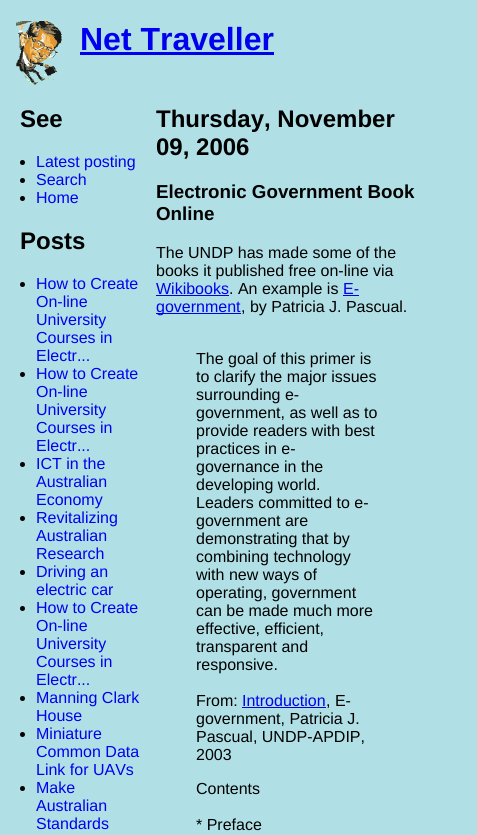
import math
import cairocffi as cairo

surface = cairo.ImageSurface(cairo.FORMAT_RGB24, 477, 835)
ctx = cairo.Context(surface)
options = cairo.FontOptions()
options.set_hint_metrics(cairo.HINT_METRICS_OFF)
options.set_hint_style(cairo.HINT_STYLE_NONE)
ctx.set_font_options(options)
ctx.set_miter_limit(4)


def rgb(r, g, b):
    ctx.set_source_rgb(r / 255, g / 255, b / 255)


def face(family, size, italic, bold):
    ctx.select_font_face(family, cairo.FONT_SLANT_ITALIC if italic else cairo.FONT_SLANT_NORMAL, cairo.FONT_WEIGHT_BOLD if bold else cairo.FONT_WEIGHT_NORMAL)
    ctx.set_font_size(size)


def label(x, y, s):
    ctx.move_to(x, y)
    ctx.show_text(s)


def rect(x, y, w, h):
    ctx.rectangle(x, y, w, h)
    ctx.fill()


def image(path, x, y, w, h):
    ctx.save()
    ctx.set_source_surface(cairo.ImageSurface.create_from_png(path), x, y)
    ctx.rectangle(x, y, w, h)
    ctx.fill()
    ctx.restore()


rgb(176, 224, 230)
ctx.paint()
image('image0.png', 16, 21, 47, 64)
face('Liberation Sans', 32, 0, 1)
rgb(0, 0, 238)
label(80, 50, 'Net Traveller')
rect(80, 52, 194, 3)
face('Liberation Sans', 24, 0, 1)
rgb(0, 0, 0)
label(20, 127, 'See')
ctx.new_path()
ctx.arc(22.5, 162.5, 2.5, 0, 2 * math.pi)
ctx.fill()
face('Liberation Sans', 16, 0, 0)
rgb(0, 0, 238)
label(36, 167, 'Latest posting')
rgb(0, 0, 0)
ctx.new_path()
ctx.arc(22.5, 180.5, 2.5, 0, 2 * math.pi)
ctx.fill()
rgb(0, 0, 238)
label(36, 185, 'Search')
rgb(0, 0, 0)
ctx.new_path()
ctx.arc(22.5, 198.5, 2.5, 0, 2 * math.pi)
ctx.fill()
rgb(0, 0, 238)
label(36, 203, 'Home')
face('Liberation Sans', 24, 0, 1)
rgb(0, 0, 0)
label(20, 249, 'Posts')
ctx.new_path()
ctx.arc(22.5, 284.5, 2.5, 0, 2 * math.pi)
ctx.fill()
face('Liberation Sans', 16, 0, 0)
rgb(0, 0, 238)
label(36, 289, 'How to Create')
label(36, 307, 'On-line')
label(36, 325, 'University')
label(36, 343, 'Courses in')
label(36, 361, 'Electr...')
rgb(0, 0, 0)
ctx.new_path()
ctx.arc(22.5, 374.5, 2.5, 0, 2 * math.pi)
ctx.fill()
rgb(0, 0, 238)
label(36, 379, 'How to Create')
label(36, 397, 'On-line')
label(36, 415, 'University')
label(36, 433, 'Courses in')
label(36, 451, 'Electr...')
rgb(0, 0, 0)
ctx.new_path()
ctx.arc(22.5, 464.5, 2.5, 0, 2 * math.pi)
ctx.fill()
rgb(0, 0, 238)
label(36, 469, 'ICT in the')
label(36, 487, 'Australian')
label(36, 505, 'Economy')
rgb(0, 0, 0)
ctx.new_path()
ctx.arc(22.5, 518.5, 2.5, 0, 2 * math.pi)
ctx.fill()
rgb(0, 0, 238)
label(36, 523, 'Revitalizing')
label(36, 541, 'Australian')
label(36, 559, 'Research')
rgb(0, 0, 0)
ctx.new_path()
ctx.arc(22.5, 572.5, 2.5, 0, 2 * math.pi)
ctx.fill()
rgb(0, 0, 238)
label(36, 577, 'Driving an')
label(36, 595, 'electric car')
rgb(0, 0, 0)
ctx.new_path()
ctx.arc(22.5, 608.5, 2.5, 0, 2 * math.pi)
ctx.fill()
rgb(0, 0, 238)
label(36, 613, 'How to Create')
label(36, 631, 'On-line')
label(36, 649, 'University')
label(36, 667, 'Courses in')
label(36, 685, 'Electr...')
rgb(0, 0, 0)
ctx.new_path()
ctx.arc(22.5, 698.5, 2.5, 0, 2 * math.pi)
ctx.fill()
rgb(0, 0, 238)
label(36, 703, 'Manning Clark')
label(36, 721, 'House')
rgb(0, 0, 0)
ctx.new_path()
ctx.arc(22.5, 734.5, 2.5, 0, 2 * math.pi)
ctx.fill()
rgb(0, 0, 238)
label(36, 739, 'Miniature')
label(36, 757, 'Common Data')
label(36, 775, 'Link for UAVs')
rgb(0, 0, 0)
ctx.new_path()
ctx.arc(22.5, 788.5, 2.5, 0, 2 * math.pi)
ctx.fill()
rgb(0, 0, 238)
label(36, 793, 'Make')
label(36, 811, 'Australian')
label(36, 829, 'Standards')
face('Liberation Sans', 24, 0, 1)
rgb(0, 0, 0)
label(156, 127, 'Thursday, November')
label(156, 155, '09, 2006')
face('Liberation Sans', 18.75, 0, 1)
label(156, 198, 'Electronic Government Book')
label(156, 220, 'Online')
face('Liberation Sans', 16, 0, 0)
label(156, 258, 'The UNDP has made some of the')
label(156, 276, 'books it published free on-line via')
rgb(0, 0, 238)
label(156, 294, 'Wikibooks')
rect(156, 295, 73, 1)
rgb(0, 0, 0)
label(229, 294, '. An example is')
rgb(0, 0, 238)
label(343, 294, 'E-')
rect(343, 295, 16, 1)
rect(156, 313, 85, 1)
label(156, 312, 'government')
rgb(0, 0, 0)
label(241, 312, ', by Patricia J. Pascual.')
label(196, 364, 'The goal of this primer is')
label(196, 382, 'to clarify the major issues')
label(196, 400, 'surrounding e-')
label(196, 418, 'government, as well as to')
label(196, 436, 'provide readers with best')
label(196, 454, 'practices in e-')
label(196, 472, 'governance in the')
label(196, 490, 'developing world.')
label(196, 508, 'Leaders committed to e-')
label(196, 526, 'government are')
label(196, 544, 'demonstrating that by')
label(196, 562, 'combining technology')
label(196, 580, 'with new ways of')
label(196, 598, 'operating, government')
label(196, 616, 'can be made much more')
label(196, 634, 'effective, efficient,')
label(196, 652, 'transparent and')
label(196, 670, 'responsive.')
label(196, 706, 'From:')
rgb(0, 0, 238)
label(242, 706, 'Introduction')
rect(242, 707, 84, 1)
rgb(0, 0, 0)
label(326, 706, ', E-')
label(196, 724, 'government, Patricia J.')
label(196, 742, 'Pascual, UNDP-APDIP,')
label(196, 760, '2003')
label(196, 794, 'Contents')
label(196, 830, '* Preface')
surface.write_to_png('render.png')
